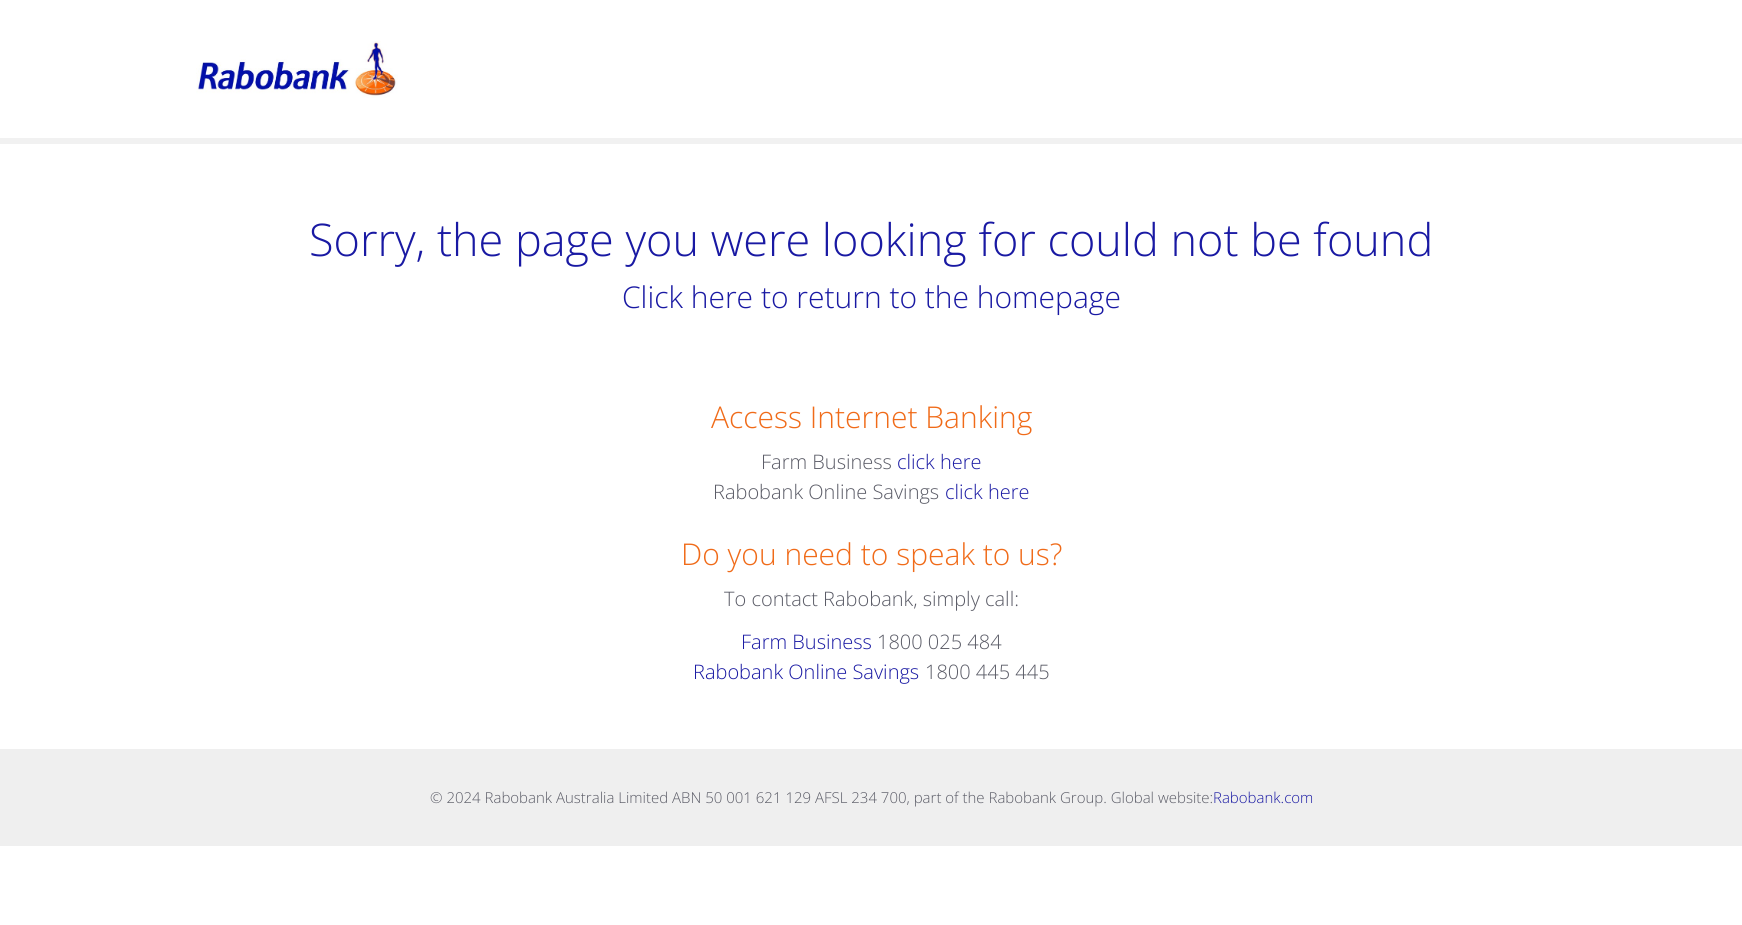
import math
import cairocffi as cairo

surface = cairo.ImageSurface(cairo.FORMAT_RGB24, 1742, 925)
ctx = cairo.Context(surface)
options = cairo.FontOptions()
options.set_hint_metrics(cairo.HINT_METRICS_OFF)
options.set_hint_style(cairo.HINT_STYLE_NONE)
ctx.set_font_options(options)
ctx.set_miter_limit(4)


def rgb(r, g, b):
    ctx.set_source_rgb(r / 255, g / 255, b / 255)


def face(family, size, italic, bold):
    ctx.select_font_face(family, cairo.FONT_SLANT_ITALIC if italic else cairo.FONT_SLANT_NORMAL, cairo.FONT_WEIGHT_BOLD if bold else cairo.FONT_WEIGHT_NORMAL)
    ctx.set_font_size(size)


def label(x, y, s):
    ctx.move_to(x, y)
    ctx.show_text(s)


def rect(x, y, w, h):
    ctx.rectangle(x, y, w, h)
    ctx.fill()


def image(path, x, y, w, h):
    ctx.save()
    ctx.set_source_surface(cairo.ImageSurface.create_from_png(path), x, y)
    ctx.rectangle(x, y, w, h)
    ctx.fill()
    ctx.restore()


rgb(255, 255, 255)
ctx.paint()
rgb(241, 241, 241)
rect(0, 138, 1742, 6)
image('image0.png', 196, 41, 202, 57)
face('Open Sans Light', 45, 0, 0)
rgb(25, 25, 163)
label(309, 256, 'Sorry, the page you were looking for could not be found')
face('Open Sans Light', 30, 0, 0)
label(622, 308, 'Click here to return to the homepage')
rgb(240, 107, 25)
label(711, 428, 'Access Internet Banking')
face('Open Sans Light', 20, 0, 0)
rgb(90, 91, 102)
label(761, 469, 'Farm Business')
rgb(25, 25, 163)
label(897, 469, 'click here')
rgb(90, 91, 102)
label(713, 499, 'Rabobank Online Savings')
rgb(25, 25, 163)
label(945, 499, 'click here')
face('Open Sans Light', 30, 0, 0)
rgb(240, 107, 25)
label(681, 565, 'Do you need to speak to us?')
face('Open Sans Light', 20, 0, 0)
rgb(90, 91, 102)
label(724, 606, 'To contact Rabobank, simply call:')
rgb(25, 25, 163)
label(741, 649, 'Farm Business')
rgb(90, 91, 102)
label(877, 649, '1800 025 484')
rgb(25, 25, 163)
label(693, 679, 'Rabobank Online Savings')
rgb(90, 91, 102)
label(925, 679, '1800 445 445')
rgb(239, 239, 239)
rect(0, 749, 1742, 97)
face('Open Sans Light', 15, 0, 0)
rgb(90, 91, 102)
label(430, 803, '© 2024 Rabobank Australia Limited ABN 50 001 621 129 AFSL 234 700, part of the Rabobank Group. Global website:')
rgb(25, 25, 163)
label(1213, 803, 'Rabobank.com')
surface.write_to_png('render.png')
